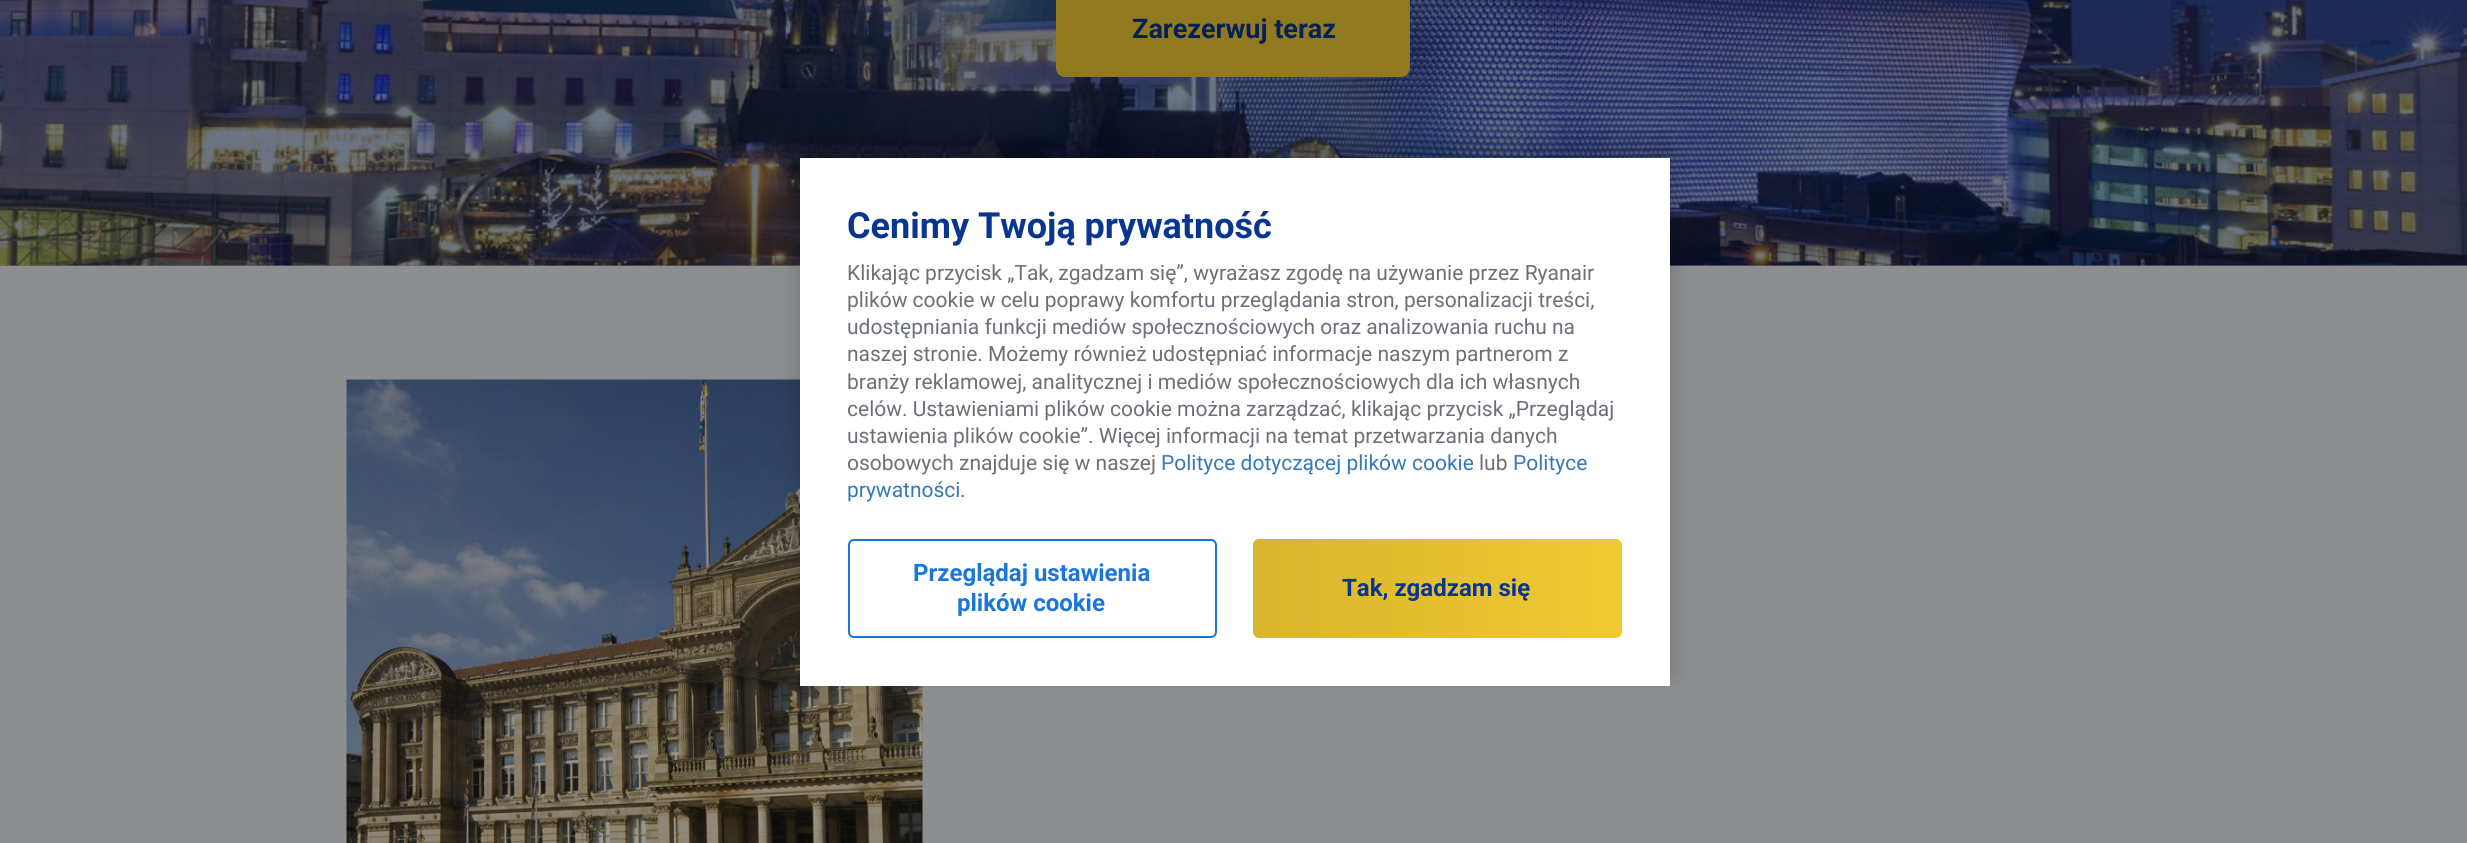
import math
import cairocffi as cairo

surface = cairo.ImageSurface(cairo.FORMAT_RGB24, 2467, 843)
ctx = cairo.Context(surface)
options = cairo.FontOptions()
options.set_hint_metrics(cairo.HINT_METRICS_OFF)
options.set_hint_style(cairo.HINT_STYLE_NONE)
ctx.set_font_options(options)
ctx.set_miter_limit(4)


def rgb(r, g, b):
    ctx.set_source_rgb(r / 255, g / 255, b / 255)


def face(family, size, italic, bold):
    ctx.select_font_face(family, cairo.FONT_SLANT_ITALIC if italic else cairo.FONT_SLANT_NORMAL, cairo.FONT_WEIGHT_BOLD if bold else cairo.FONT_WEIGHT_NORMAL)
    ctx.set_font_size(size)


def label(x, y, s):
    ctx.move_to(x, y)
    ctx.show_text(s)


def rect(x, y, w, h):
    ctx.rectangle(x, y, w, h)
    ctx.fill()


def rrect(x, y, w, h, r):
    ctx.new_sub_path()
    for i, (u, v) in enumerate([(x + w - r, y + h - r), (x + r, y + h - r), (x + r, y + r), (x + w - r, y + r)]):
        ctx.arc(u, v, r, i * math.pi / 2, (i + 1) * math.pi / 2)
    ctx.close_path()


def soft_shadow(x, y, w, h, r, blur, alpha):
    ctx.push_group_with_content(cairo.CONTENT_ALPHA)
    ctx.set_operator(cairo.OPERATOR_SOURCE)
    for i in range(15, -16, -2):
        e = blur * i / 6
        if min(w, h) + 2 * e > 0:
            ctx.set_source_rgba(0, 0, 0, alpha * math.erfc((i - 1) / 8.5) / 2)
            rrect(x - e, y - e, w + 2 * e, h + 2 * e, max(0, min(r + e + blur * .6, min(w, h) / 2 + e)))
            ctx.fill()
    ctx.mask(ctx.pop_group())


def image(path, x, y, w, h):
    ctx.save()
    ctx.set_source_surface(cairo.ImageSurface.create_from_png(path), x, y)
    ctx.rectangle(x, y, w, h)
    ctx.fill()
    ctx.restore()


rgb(104, 112, 128)
ctx.paint()
image('image0.png', 0, 0, 2467, 266)
rgb(145, 121, 31)
rrect(1057.5, -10.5, 351, 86, 7.5)
ctx.fill_preserve()
ctx.set_line_width(3)
ctx.stroke()
face('Roboto', 27, 0, 1)
rgb(4, 32, 86)
label(1132, 38, 'Zarezerwuj teraz')
rgb(141, 142, 143)
rect(0, 266, 2467, 577)
image('image1.png', 346, 379, 577, 464)
rgb(0, 0, 0)
soft_shadow(800, 146, 870, 528, 0, 12, 0.2)
rgb(255, 255, 255)
rect(800, 158, 870, 528)
face('Roboto', 36, 0, 1)
rgb(7, 53, 144)
label(847, 238, 'Cenimy Twoją prywatność')
face('Roboto', 21, 0, 0)
rgb(108, 112, 121)
label(847, 280, 'Klikając przycisk „Tak, zgadzam się”, wyrażasz zgodę na używanie przez Ryanair')
label(847, 307, 'plików cookie w celu poprawy komfortu przeglądania stron, personalizacji treści,')
label(847, 334, 'udostępniania funkcji mediów społecznościowych oraz analizowania ruchu na')
label(847, 361, 'naszej stronie. Możemy również udostępniać informacje naszym partnerom z')
label(847, 389, 'branży reklamowej, analitycznej i mediów społecznościowych dla ich własnych')
label(847, 416, 'celów. Ustawieniami plików cookie można zarządzać, klikając przycisk „Przeglądaj')
label(847, 443, 'ustawienia plików cookie”. Więcej informacji na temat przetwarzania danych')
label(847, 470, 'osobowych znajduje się w naszej')
rgb(51, 122, 183)
label(1161, 470, 'Polityce dotyczącej plików cookie')
rgb(108, 112, 121)
label(1479, 470, 'lub')
rgb(51, 122, 183)
label(1513, 470, 'Polityce')
label(847, 497, 'prywatności')
rgb(108, 112, 121)
label(960, 497, '.')
rrect(849, 540, 367, 97, 5)
rgb(25, 118, 219)
ctx.set_line_width(2)
ctx.stroke()
face('Roboto', 24, 0, 1)
label(913, 581, 'Przeglądaj ustawienia')
label(957, 611, 'plików cookie')
gradient = cairo.LinearGradient(1253, 588, 1622, 588)
gradient.add_color_stop_rgba(0, 0.851, 0.71, 0.18, 1)
gradient.add_color_stop_rgba(1, 0.945, 0.788, 0.2, 1)
ctx.set_source(gradient)
rrect(1253, 539, 369, 99, 6)
ctx.fill()
rgb(7, 53, 144)
label(1342, 596, 'Tak, zgadzam się')
surface.write_to_png('render.png')
